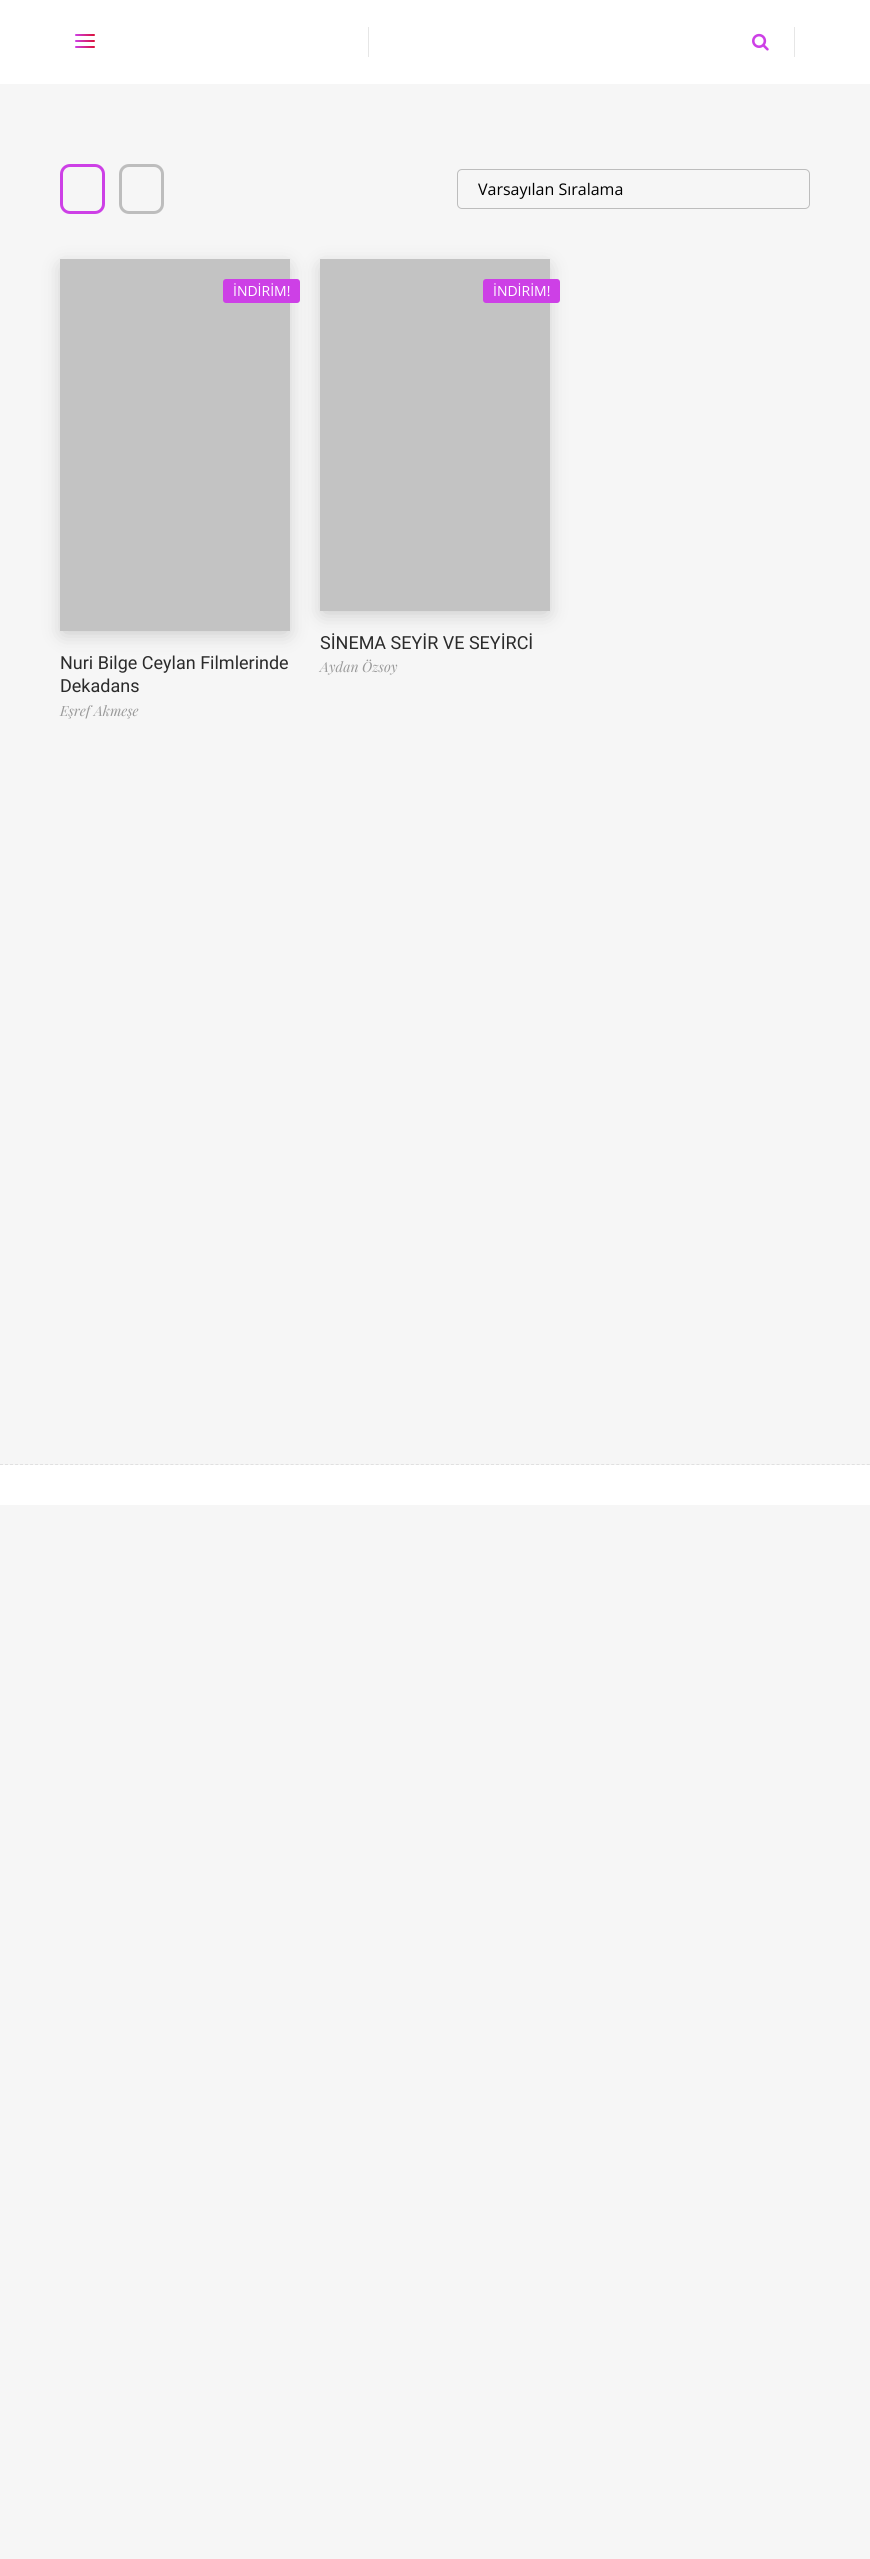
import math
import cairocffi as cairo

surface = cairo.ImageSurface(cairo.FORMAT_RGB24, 870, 2559)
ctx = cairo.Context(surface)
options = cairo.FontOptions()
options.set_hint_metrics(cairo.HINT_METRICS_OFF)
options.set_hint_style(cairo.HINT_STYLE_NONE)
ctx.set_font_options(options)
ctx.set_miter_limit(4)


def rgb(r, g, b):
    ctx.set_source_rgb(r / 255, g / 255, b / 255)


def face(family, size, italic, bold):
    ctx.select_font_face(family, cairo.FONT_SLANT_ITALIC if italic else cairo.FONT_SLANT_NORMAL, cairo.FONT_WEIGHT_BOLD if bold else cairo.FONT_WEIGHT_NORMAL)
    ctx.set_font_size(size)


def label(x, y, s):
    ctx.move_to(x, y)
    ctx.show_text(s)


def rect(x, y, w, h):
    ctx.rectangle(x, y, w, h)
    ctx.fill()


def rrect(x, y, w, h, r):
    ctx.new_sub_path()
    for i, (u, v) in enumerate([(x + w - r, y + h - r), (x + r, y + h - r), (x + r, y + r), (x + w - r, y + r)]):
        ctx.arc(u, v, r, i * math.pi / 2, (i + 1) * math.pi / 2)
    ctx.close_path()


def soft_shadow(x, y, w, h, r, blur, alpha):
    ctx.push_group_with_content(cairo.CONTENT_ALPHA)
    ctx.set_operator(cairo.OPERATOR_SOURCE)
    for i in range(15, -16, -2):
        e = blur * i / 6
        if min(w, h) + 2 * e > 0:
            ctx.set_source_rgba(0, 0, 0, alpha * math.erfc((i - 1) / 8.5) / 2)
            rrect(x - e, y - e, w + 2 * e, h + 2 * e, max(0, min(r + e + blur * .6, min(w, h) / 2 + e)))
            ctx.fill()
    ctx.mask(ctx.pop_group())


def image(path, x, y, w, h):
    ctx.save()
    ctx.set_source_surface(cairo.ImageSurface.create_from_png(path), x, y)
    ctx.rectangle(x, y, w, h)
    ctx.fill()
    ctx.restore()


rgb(246, 246, 246)
ctx.paint()
rgb(255, 255, 255)
rect(0, 0, 870, 84)
gradient = cairo.LinearGradient(95, 41, 75, 41)
gradient.add_color_stop_rgba(0, 0.859, 0.063, 0.216, 1)
gradient.add_color_stop_rgba(1, 0.804, 0.251, 0.902, 1)
ctx.set_source(gradient)
rrect(75, 40, 20, 2, 1)
ctx.fill()
gradient = cairo.LinearGradient(95, 35, 75, 35)
gradient.add_color_stop_rgba(0, 0.859, 0.063, 0.216, 1)
gradient.add_color_stop_rgba(1, 0.804, 0.251, 0.902, 1)
ctx.set_source(gradient)
rrect(75, 34, 20, 2, 1)
ctx.fill()
gradient = cairo.LinearGradient(95, 47, 75, 47)
gradient.add_color_stop_rgba(0, 0.859, 0.063, 0.216, 1)
gradient.add_color_stop_rgba(1, 0.804, 0.251, 0.902, 1)
ctx.set_source(gradient)
rrect(75, 46, 20, 2, 1)
ctx.fill()
rgb(230, 230, 230)
rect(368, 27, 1, 30)
image('image0.png', 752, 33, 17, 18)
rect(794, 27, 1, 30)
rrect(61.5, 165.5, 42, 47, 8.5)
rgb(205, 64, 230)
ctx.set_line_width(3)
ctx.stroke()
rrect(120.5, 165.5, 42, 47, 8.5)
rgb(189, 189, 189)
ctx.stroke()
rrect(457.5, 169.5, 352, 39, 4.5)
ctx.set_line_width(1)
ctx.stroke()
face('Open Sans', 16, 0, 0)
rgb(0, 0, 0)
label(478, 195, 'Varsayılan Sıralama')
rgb(0, 0, 0)
soft_shadow(63, 267, 224, 366, 0, 10, 0.2)
rgb(195, 195, 195)
rect(60, 259, 230, 372)
rgb(0, 0, 0)
soft_shadow(323, 267, 224, 346, 0, 10, 0.2)
rgb(205, 64, 230)
rrect(223, 279, 77, 24, 3)
ctx.fill()
face('Open Sans', 14, 0, 0)
rgb(255, 255, 255)
label(233, 296, 'İNDİRİM!')
face('Roboto', 18, 0, 0)
rgb(43, 43, 43)
label(60, 669, 'Nuri Bilge Ceylan Filmlerinde')
label(60, 692, 'Dekadans')
face('Playfair Display', 14, 1, 0)
rgb(153, 153, 153)
label(60, 716, 'Eşref Akmeşe')
rgb(195, 195, 195)
rect(320, 259, 230, 352)
rgb(205, 64, 230)
rrect(483, 279, 77, 24, 3)
ctx.fill()
face('Open Sans', 14, 0, 0)
rgb(255, 255, 255)
label(493, 296, 'İNDİRİM!')
face('Roboto', 18, 0, 0)
rgb(43, 43, 43)
label(320, 649, 'SİNEMA SEYİR VE SEYİRCİ')
face('Playfair Display', 14, 1, 0)
rgb(153, 153, 153)
label(320, 672, 'Aydan Özsoy')
ctx.new_path()
ctx.move_to(0, 1464.5)
ctx.line_to(870, 1464.5)
rgb(224, 224, 224)
ctx.set_dash([3, 2.01])
ctx.stroke()
rgb(255, 255, 255)
rect(0, 1465, 870, 40)
surface.write_to_png('render.png')
